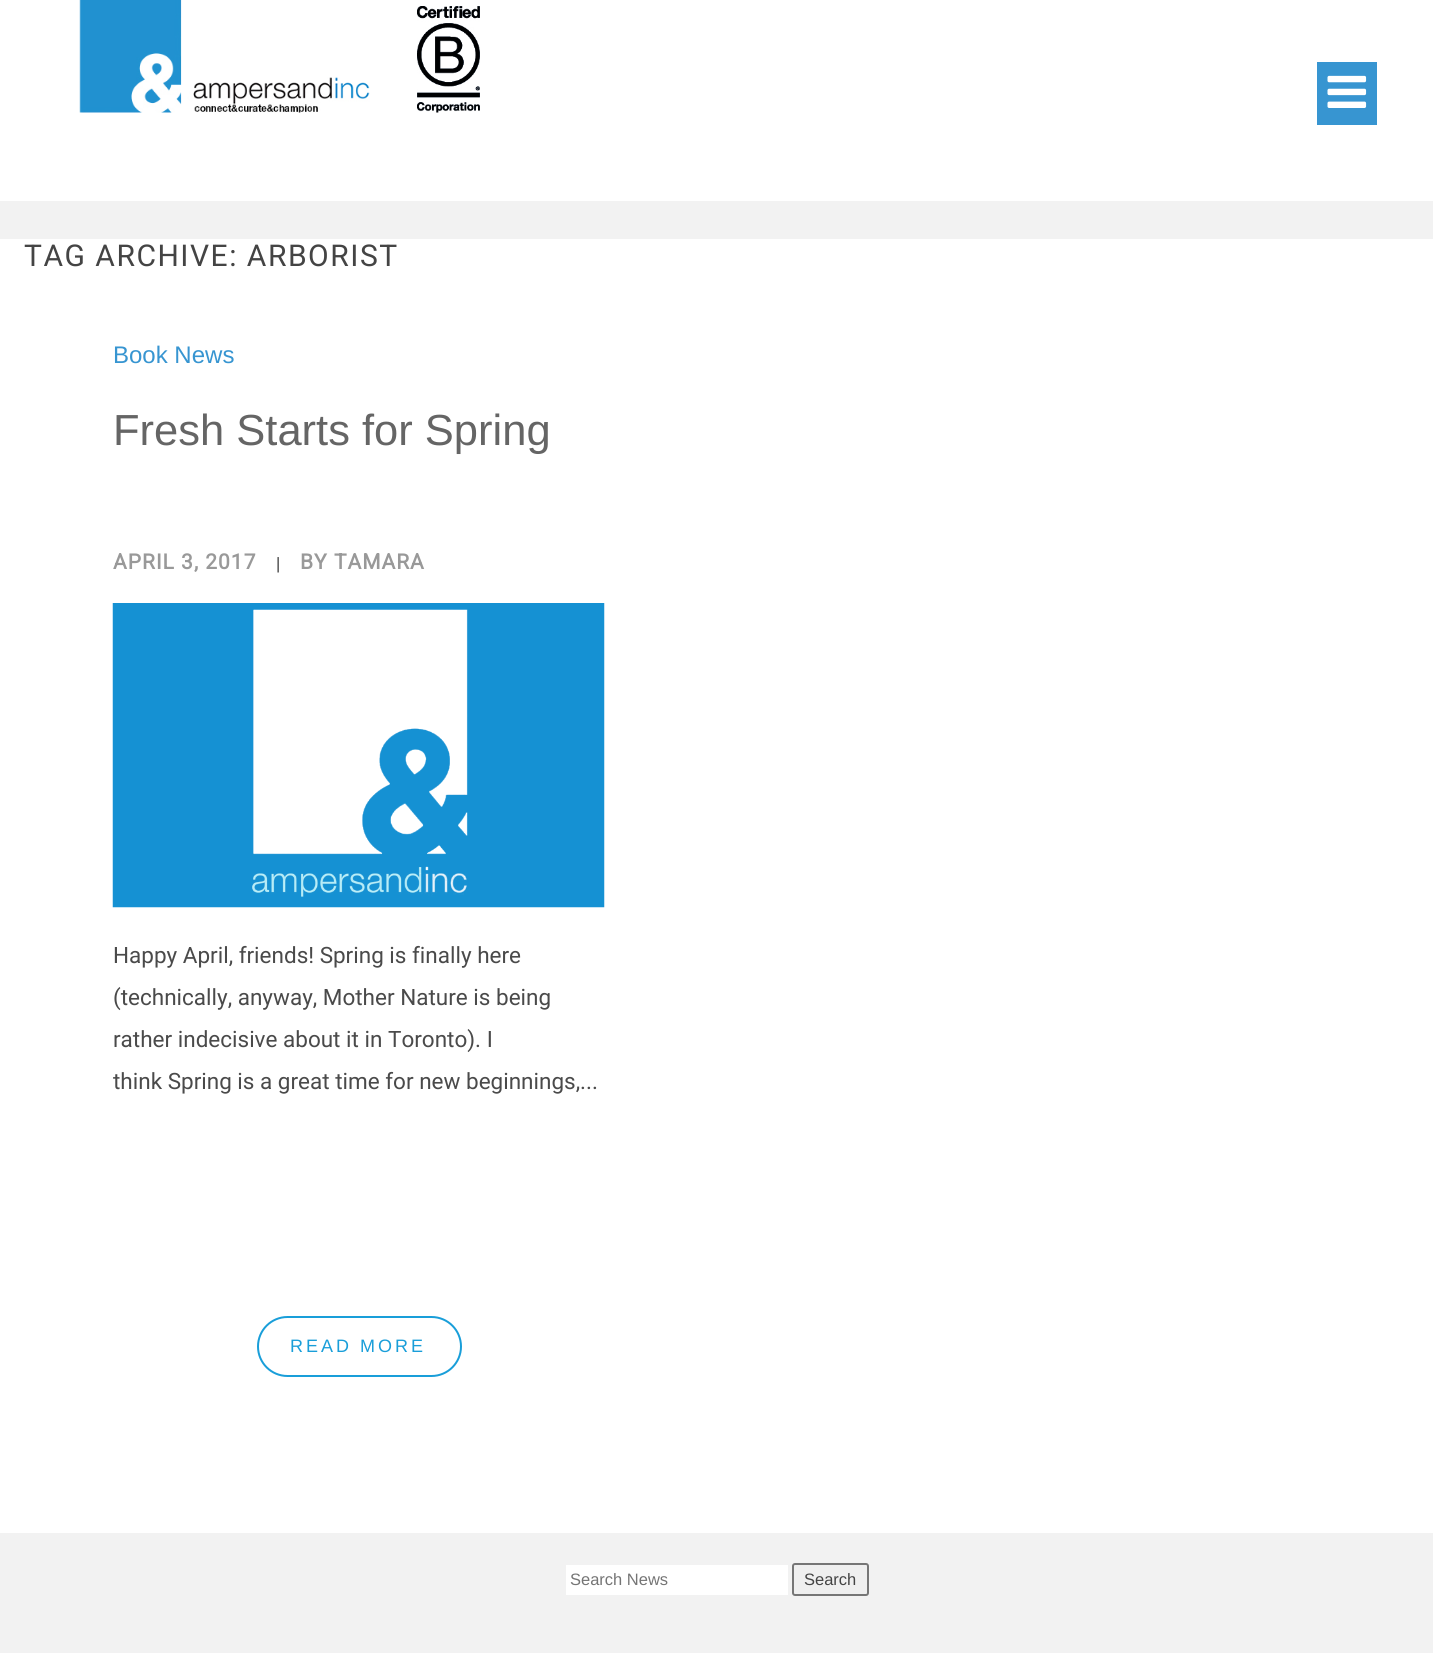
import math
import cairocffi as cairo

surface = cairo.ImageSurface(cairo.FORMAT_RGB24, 1433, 1653)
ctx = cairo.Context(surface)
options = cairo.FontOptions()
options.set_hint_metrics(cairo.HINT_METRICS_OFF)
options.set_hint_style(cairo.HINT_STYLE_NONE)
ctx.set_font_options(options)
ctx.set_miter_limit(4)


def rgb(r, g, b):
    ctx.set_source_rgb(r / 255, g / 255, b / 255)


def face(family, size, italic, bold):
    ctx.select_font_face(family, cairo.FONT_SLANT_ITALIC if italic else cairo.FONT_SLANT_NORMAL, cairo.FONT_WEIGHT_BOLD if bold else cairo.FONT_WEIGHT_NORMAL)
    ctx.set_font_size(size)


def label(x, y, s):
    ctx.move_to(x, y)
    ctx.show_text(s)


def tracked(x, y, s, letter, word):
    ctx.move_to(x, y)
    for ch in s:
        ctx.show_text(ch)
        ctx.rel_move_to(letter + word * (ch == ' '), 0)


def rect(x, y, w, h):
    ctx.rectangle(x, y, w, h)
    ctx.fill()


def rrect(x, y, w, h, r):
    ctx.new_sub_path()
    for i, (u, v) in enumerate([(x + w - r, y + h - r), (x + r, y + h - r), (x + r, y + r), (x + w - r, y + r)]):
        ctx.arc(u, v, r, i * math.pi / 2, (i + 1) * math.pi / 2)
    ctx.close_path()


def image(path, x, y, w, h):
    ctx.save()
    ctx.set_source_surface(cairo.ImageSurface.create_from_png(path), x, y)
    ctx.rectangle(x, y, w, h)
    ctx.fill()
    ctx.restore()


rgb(242, 242, 242)
ctx.paint()
rgb(255, 255, 255)
rect(0, 0, 1433, 201)
image('image0.png', 79, 0, 291, 113)
image('image1.png', 417, 6, 63, 107)
rgb(55, 149, 209)
rect(1317, 62, 60, 63)
image('image2.png', 1327, 75, 40, 33)
rgb(255, 255, 255)
rect(0, 239, 1433, 1294)
face('Roboto', 30, 0, 0)
rgb(68, 68, 68)
tracked(24, 266, 'TAG ARCHIVE: ARBORIST', 1.5, 0)
face('Liberation Sans', 24, 0, 0)
rgb(55, 149, 209)
label(113, 363, 'Book News')
face('Liberation Sans', 43.5, 0, 0)
rgb(101, 101, 101)
label(113, 445, 'Fresh Starts for Spring')
face('Roboto', 21, 0, 1)
rgb(153, 153, 153)
tracked(113, 569, 'APRIL 3, 2017', 1, 0)
face('Liberation Sans', 16.5, 0, 0)
rgb(68, 68, 68)
label(276, 569, '|')
face('Roboto', 21, 0, 1)
rgb(153, 153, 153)
tracked(300, 569, 'BY TAMARA', 1, 0)
image('image3.png', 112, 603, 493, 305)
face('Roboto', 22.5, 0, 0)
rgb(74, 74, 74)
label(113, 963, 'Happy April, friends! Spring is finally here')
label(113, 1005, '(technically, anyway, Mother Nature is being')
label(113, 1047, 'rather indecisive about it in Toronto). I')
label(113, 1089, 'think Spring is a great time for new beginnings,...')
rrect(258, 1317, 203, 59, 29.5)
rgb(25, 158, 217)
ctx.stroke()
face('Liberation Sans', 18, 0, 0)
tracked(290, 1352, 'READ MORE', 3, 0)
rgb(255, 255, 255)
rect(566, 1565, 222, 30)
face('Liberation Sans', 16.5, 0, 0)
rgb(117, 117, 117)
label(570, 1585, 'Search News')
rgb(239, 239, 239)
rrect(793, 1564, 75, 31, 2)
ctx.fill_preserve()
rgb(118, 118, 118)
ctx.stroke()
rgb(68, 68, 68)
label(804, 1585, 'Search')
surface.write_to_png('render.png')
